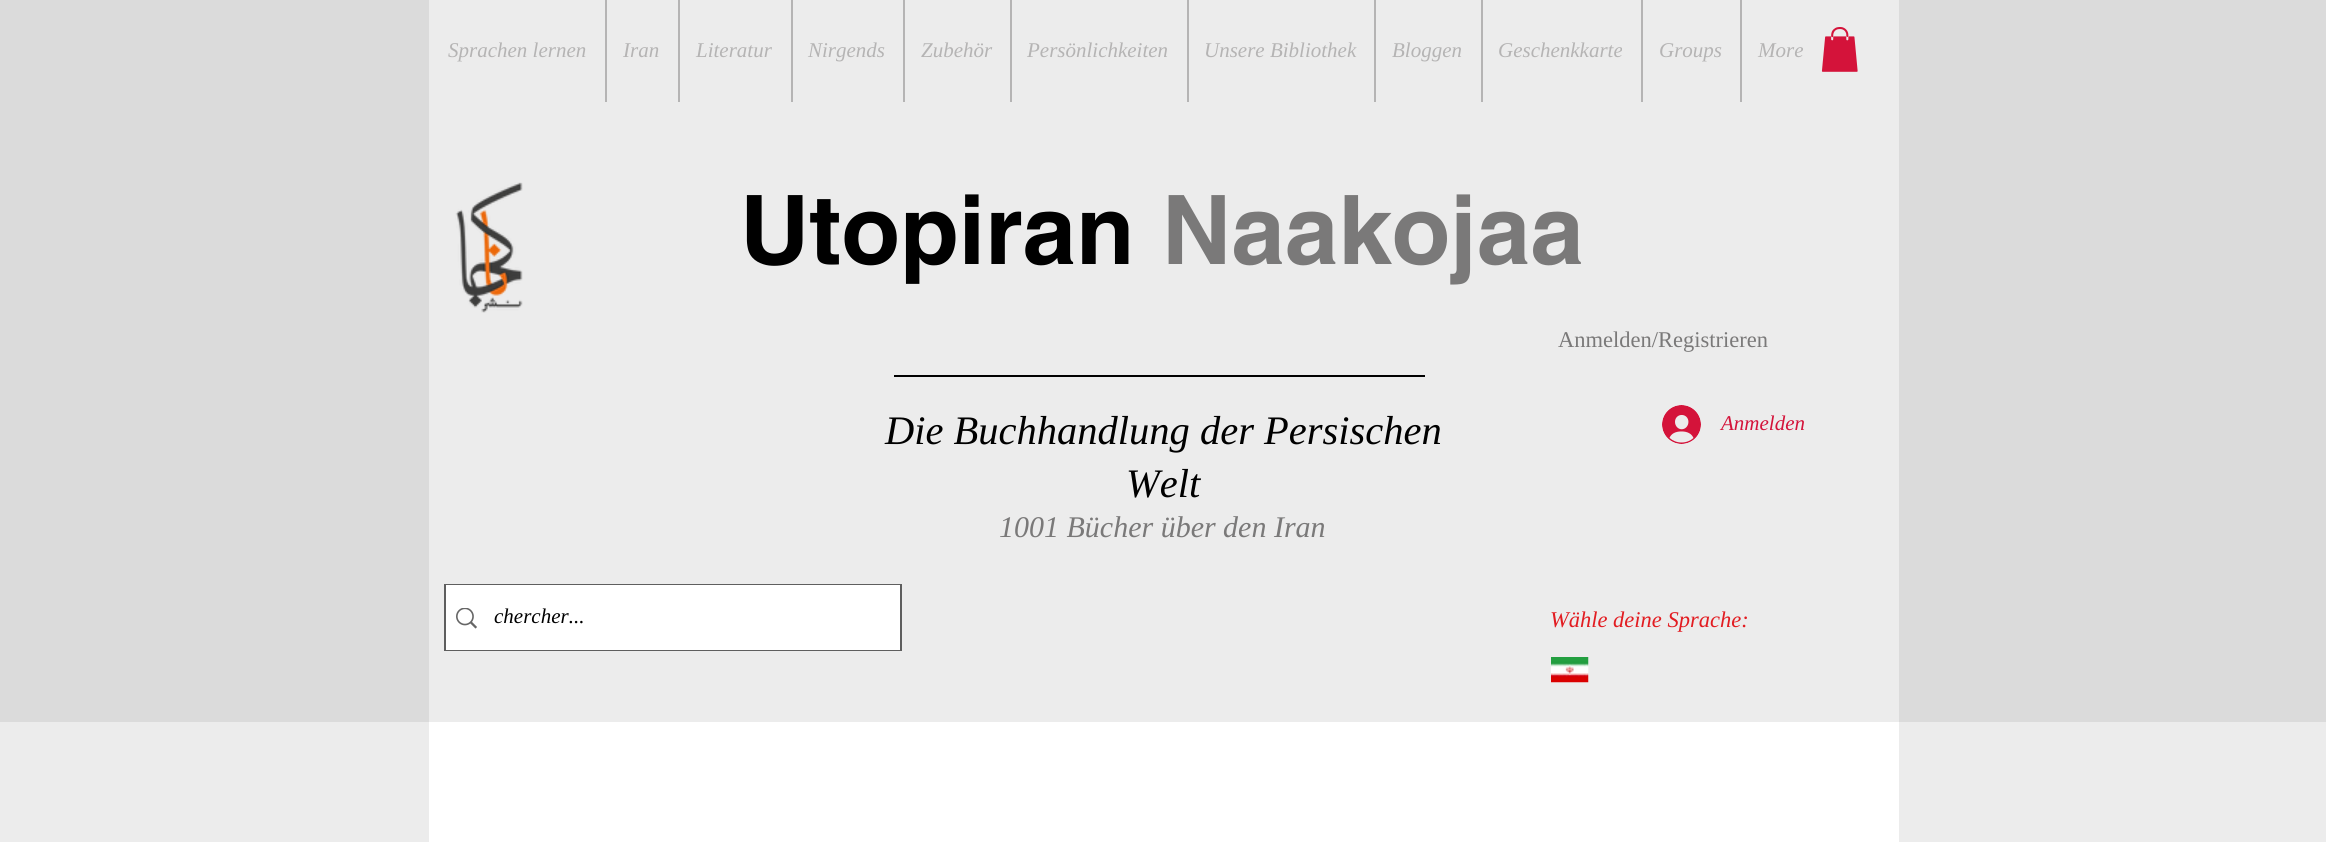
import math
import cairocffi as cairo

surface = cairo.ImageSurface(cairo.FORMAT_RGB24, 2326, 842)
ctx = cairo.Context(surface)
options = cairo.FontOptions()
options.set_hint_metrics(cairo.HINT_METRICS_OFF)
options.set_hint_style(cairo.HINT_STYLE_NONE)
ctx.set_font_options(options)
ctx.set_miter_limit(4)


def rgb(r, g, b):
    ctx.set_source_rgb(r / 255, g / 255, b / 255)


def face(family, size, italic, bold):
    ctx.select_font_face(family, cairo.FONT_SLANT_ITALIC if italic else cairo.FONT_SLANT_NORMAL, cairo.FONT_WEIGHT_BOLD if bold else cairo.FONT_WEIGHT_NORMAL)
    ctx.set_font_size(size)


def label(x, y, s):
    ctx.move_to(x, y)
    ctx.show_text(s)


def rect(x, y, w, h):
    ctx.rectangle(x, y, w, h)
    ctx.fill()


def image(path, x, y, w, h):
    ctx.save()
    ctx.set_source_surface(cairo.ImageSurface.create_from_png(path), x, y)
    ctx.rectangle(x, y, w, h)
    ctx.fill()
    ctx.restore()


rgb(236, 236, 236)
ctx.paint()
rgb(219, 219, 219)
rect(0, 0, 2326, 722)
rgb(236, 236, 236)
rect(429, 0, 1470, 722)
face('Liberation Serif', 21, 1, 0)
rgb(181, 180, 180)
label(448, 57, 'Sprachen lernen')
rect(605, 0, 2, 102)
label(623, 57, 'Iran')
rect(678, 0, 2, 102)
label(696, 57, 'Literatur')
rect(791, 0, 2, 102)
label(808, 57, 'Nirgends')
rect(903, 0, 2, 102)
label(921, 57, 'Zubehör')
rect(1010, 0, 2, 102)
label(1027, 57, 'Persönlichkeiten')
rect(1187, 0, 2, 102)
label(1204, 57, 'Unsere Bibliothek')
rect(1374, 0, 2, 102)
label(1392, 57, 'Bloggen')
rect(1481, 0, 2, 102)
label(1498, 57, 'Geschenkkarte')
rect(1641, 0, 2, 102)
label(1659, 57, 'Groups')
rect(1740, 0, 2, 102)
label(1758, 57, 'More')
image('image0.png', 1821, 27, 37, 45)
image('image1.png', 455, 182, 68, 131)
face('helvetica', 96, 0, 1)
rgb(0, 0, 0)
label(740, 264, 'Utopiran')
rgb(122, 121, 121)
label(1162, 264, 'Naakojaa')
face('Liberation Serif', 22.5, 0, 0)
label(1558, 347, 'Anmelden/Registrieren')
rgb(0, 0, 0)
rect(894, 375, 531, 2)
face('Liberation Serif', 40.5, 1, 0)
label(885, 444, 'Die Buchhandlung der Persischen')
label(1126, 497, 'Welt')
image('image2.png', 1662, 405, 39, 39)
face('Liberation Serif', 21, 1, 0)
rgb(212, 19, 58)
label(1721, 430, 'Anmelden')
face('Liberation Serif', 30, 1, 0)
rgb(122, 121, 121)
label(999, 537, '1001 Bücher über den Iran')
ctx.rectangle(445, 585, 456, 65)
rgb(94, 94, 94)
ctx.stroke()
rgb(255, 255, 255)
rect(446, 585, 454, 65)
image('image3.png', 456, 608, 21, 21)
face('Liberation Serif', 21, 1, 0)
rgb(0, 0, 0)
label(494, 623, 'chercher...')
face('Liberation Serif', 22.5, 1, 0)
rgb(226, 28, 33)
label(1550, 627, 'Wähle deine Sprache:')
image('image4.png', 1551, 657, 38, 26)
rgb(255, 255, 255)
rect(429, 722, 1470, 120)
surface.write_to_png('render.png')
